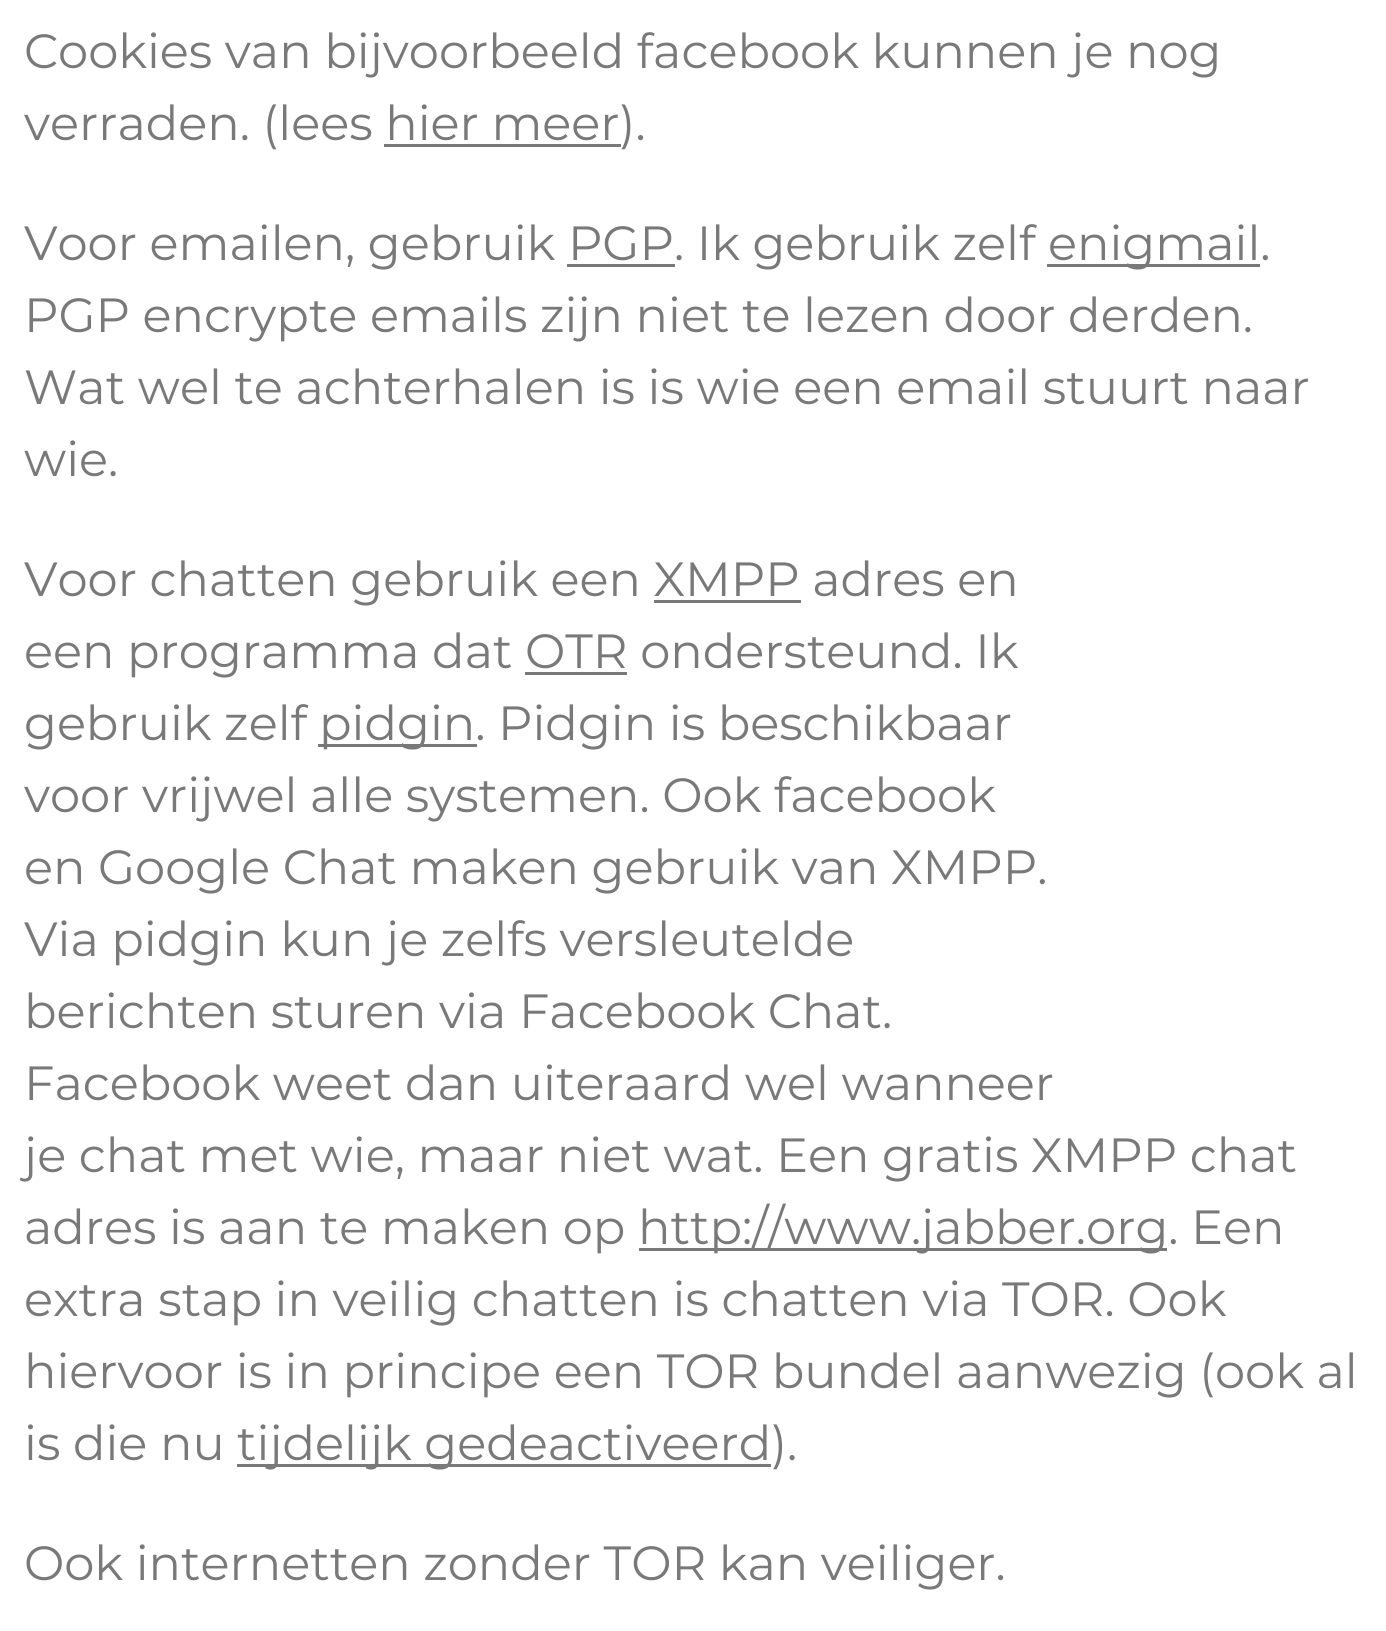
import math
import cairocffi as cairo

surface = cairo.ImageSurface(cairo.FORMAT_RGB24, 1386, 1631)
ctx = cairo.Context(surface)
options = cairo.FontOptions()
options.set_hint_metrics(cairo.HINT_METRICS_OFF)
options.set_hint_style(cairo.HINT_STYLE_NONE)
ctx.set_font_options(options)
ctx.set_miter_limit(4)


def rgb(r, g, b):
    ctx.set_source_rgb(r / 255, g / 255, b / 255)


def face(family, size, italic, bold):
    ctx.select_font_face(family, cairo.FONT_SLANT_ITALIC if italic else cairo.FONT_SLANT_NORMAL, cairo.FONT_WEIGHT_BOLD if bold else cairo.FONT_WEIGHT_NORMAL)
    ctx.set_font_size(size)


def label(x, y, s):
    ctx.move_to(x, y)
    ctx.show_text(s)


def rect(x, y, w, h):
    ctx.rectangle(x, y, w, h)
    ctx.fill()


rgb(255, 255, 255)
ctx.paint()
face('Montserrat', 48, 0, 0)
rgb(121, 121, 121)
label(24, 68, 'Cookies van bijvoorbeeld facebook kunnen je nog')
label(24, 140, 'verraden. (lees hier meer).')
rect(384, 144, 237, 3)
label(24, 260, 'Voor emailen, gebruik PGP. Ik gebruik zelf')
rect(1047, 264, 213, 3)
label(1048, 260, 'enigmail.')
rect(567, 264, 108, 3)
label(24, 332, 'PGP encrypte emails zijn niet te lezen door derden.')
label(24, 404, 'Wat wel te achterhalen is is wie een email stuurt naar')
label(24, 476, 'wie.')
label(24, 596, 'Voor chatten gebruik een XMPP adres en')
rect(654, 600, 147, 3)
label(24, 668, 'een programma dat OTR ondersteund. Ik')
rect(525, 672, 102, 3)
label(24, 740, 'gebruik zelf')
rect(318, 744, 159, 3)
label(319, 740, 'pidgin. Pidgin is beschikbaar')
label(24, 812, 'voor vrijwel alle systemen. Ook facebook')
label(24, 884, 'en Google Chat maken gebruik van XMPP.')
label(24, 956, 'Via pidgin kun je zelfs versleutelde')
label(24, 1028, 'berichten sturen via Facebook Chat.')
label(24, 1100, 'Facebook weet dan uiteraard wel wanneer')
label(24, 1172, 'je chat met wie, maar niet wat. Een gratis XMPP chat')
label(24, 1244, 'adres is aan te maken op')
rect(639, 1248, 528, 3)
label(638, 1244, 'http://www.jabber.org. Een')
label(24, 1316, 'extra stap in veilig chatten is chatten via TOR. Ook')
label(24, 1388, 'hiervoor is in principe een TOR bundel aanwezig (ook al')
label(24, 1460, 'is die nu')
rect(237, 1464, 534, 3)
label(237, 1460, 'tijdelijk gedeactiveerd).')
label(24, 1580, 'Ook internetten zonder TOR kan veiliger.')
surface.write_to_png('render.png')
